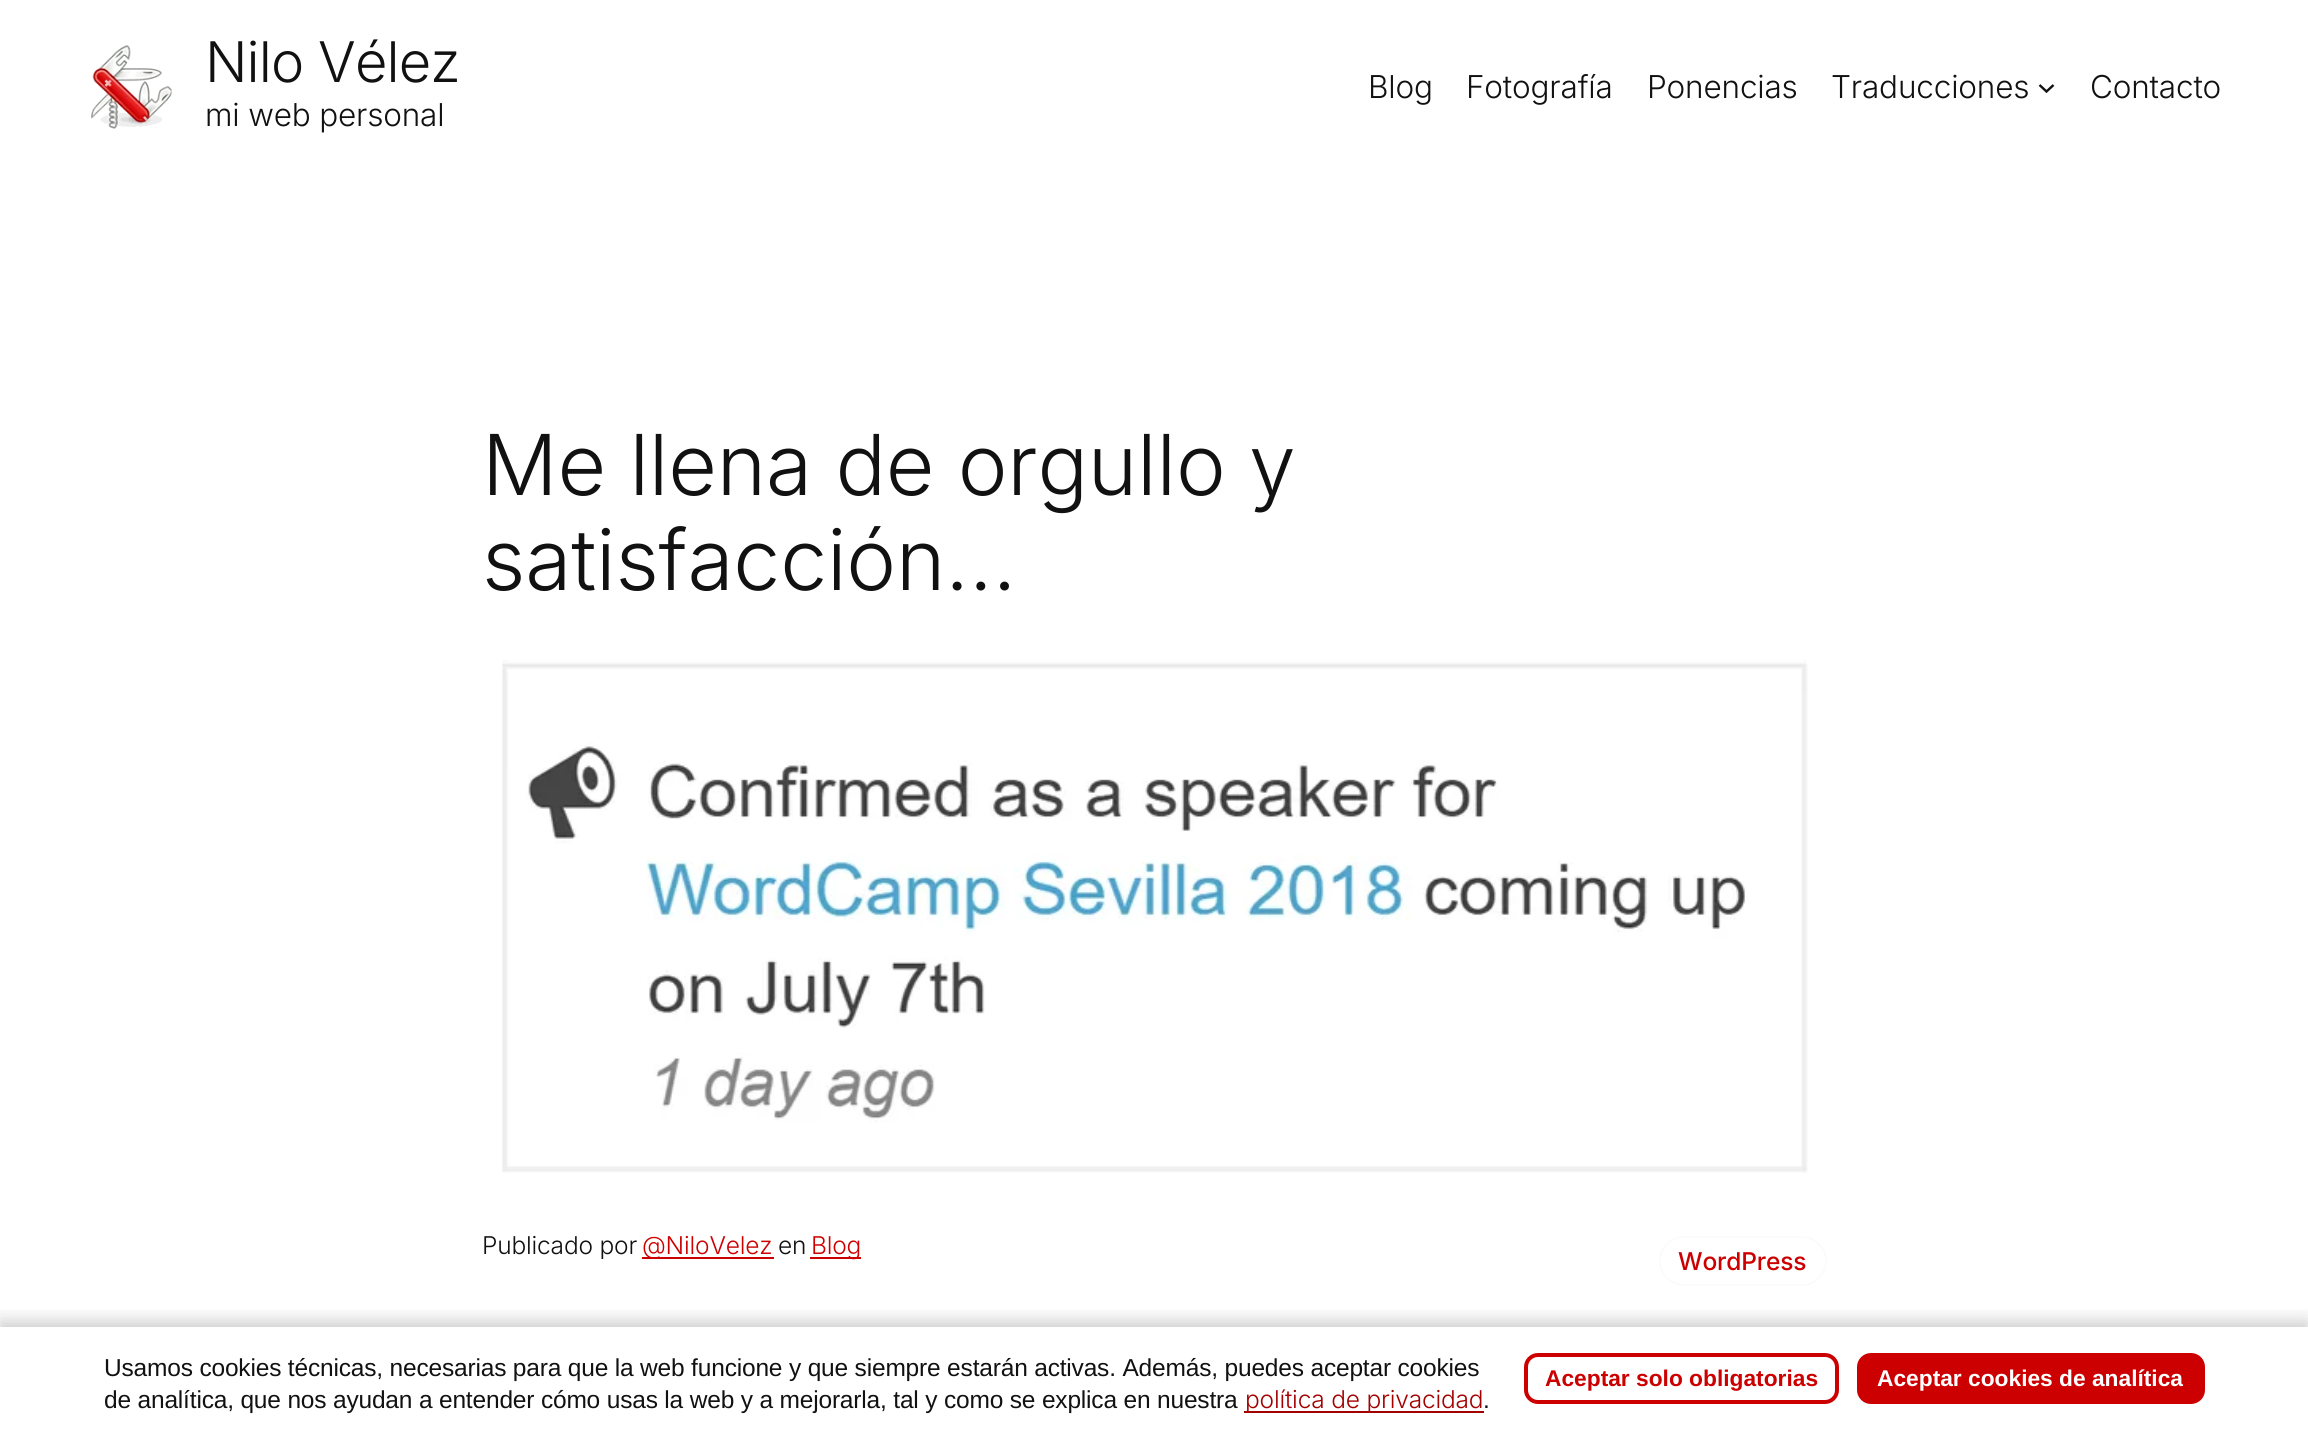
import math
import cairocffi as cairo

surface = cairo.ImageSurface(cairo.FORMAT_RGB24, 2308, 1442)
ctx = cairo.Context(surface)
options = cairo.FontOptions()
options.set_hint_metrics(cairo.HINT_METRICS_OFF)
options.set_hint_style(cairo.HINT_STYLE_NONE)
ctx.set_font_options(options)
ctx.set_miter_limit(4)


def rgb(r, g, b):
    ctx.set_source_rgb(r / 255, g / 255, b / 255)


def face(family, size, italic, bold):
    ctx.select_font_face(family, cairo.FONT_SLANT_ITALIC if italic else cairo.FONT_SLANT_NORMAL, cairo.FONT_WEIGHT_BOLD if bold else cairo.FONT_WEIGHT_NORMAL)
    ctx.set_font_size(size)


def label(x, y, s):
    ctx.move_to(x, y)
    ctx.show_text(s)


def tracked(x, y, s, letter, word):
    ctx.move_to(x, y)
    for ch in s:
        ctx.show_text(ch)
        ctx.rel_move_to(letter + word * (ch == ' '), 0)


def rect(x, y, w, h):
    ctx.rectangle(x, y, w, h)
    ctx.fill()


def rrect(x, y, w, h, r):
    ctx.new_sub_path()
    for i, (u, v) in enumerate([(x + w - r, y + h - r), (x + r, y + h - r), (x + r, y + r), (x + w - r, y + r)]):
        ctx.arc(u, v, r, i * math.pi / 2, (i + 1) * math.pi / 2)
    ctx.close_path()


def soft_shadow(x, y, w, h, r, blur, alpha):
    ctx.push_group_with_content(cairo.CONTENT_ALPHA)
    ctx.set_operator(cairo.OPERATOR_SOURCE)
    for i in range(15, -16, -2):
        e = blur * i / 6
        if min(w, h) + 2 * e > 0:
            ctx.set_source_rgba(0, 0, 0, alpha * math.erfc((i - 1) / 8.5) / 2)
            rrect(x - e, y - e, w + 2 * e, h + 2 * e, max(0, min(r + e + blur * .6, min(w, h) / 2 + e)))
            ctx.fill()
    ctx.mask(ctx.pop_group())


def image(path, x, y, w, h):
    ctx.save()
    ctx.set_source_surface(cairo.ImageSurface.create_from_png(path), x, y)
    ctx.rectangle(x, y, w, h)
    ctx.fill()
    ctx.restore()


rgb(255, 255, 255)
ctx.paint()
image('image0.png', 91, 45, 81, 84)
face('Inter Light', 56, 0, 0)
rgb(17, 17, 17)
tracked(205, 82, 'Nilo Vélez', -0.9, 0)
face('Inter Light', 31.5, 0, 0)
tracked(205, 126, 'mi web personal', -0.18, 0)
tracked(1368, 98, 'Blog', -0.18, 0)
tracked(1466, 98, 'Fotografía', -0.18, 0)
tracked(1647, 98, 'Ponencias', -0.18, 0)
tracked(1831, 98, 'Traducciones', -0.18, 0)
ctx.new_path()
ctx.move_to(2039.5, 85)
ctx.line_to(2046.5, 91.5)
ctx.line_to(2053.5, 85)
ctx.set_line_width(2.4)
ctx.stroke()
tracked(2090, 98, 'Contacto', -0.18, 0)
face('Inter Light', 84, 0, 0)
tracked(482, 495, 'Me llena de orgullo y', -0.18, 0)
tracked(482, 590, 'satisfacción…', -0.18, 0)
image('image1.png', 502, 660, 1306, 513)
face('Inter Light', 24.5, 0, 0)
tracked(482, 1254, 'Publicado por', -0.18, 0)
rgb(204, 0, 0)
tracked(642, 1254, '@NiloVelez', -0.18, 0)
rect(642, 1257, 132, 2)
rgb(17, 17, 17)
tracked(778, 1254, 'en', -0.18, 0)
rgb(204, 0, 0)
rect(810, 1257, 51, 2)
tracked(811, 1254, 'Blog', -0.18, 0)
rrect(1660, 1237, 166, 48, 24)
rgb(251, 251, 251)
ctx.set_line_width(2)
ctx.stroke()
face('Inter Medium', 24.5, 0, 0)
rgb(204, 0, 0)
tracked(1678, 1270, 'WordPress', -0.18, 0)
ctx.save()
ctx.rectangle(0, 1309, 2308, 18)
ctx.clip()
rgb(0, 0, 0)
soft_shadow(0, 1321, 2308, 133, 0, 9, 0.2)
ctx.restore()
face('Liberation Sans', 24.5, 0, 0)
rgb(17, 17, 17)
tracked(104, 1376, 'Usamos cookies técnicas, necesarias para que la web funcione y que siempre estarán activas. Además, puedes aceptar cookies', -0.18, 0)
tracked(104, 1408, 'de analítica, que nos ayudan a entender cómo usas la web y a mejorarla, tal y como se explica en nuestra', -0.18, 0)
rgb(163, 0, 0)
rect(1244, 1411, 240, 2)
face('Inter Light', 24.5, 0, 0)
tracked(1245, 1408, 'política de privacidad', -0.18, 0)
face('Liberation Sans', 24.5, 0, 0)
rgb(17, 17, 17)
tracked(1483, 1408, '.', -0.18, 0)
rrect(1526, 1355, 311, 47, 12)
rgb(204, 0, 0)
ctx.set_line_width(4)
ctx.stroke()
face('Liberation Sans', 22.75, 0, 1)
label(1545, 1386, 'Aceptar solo obligatorias')
rrect(1859, 1355, 344, 47, 12)
ctx.fill_preserve()
ctx.stroke()
rgb(255, 255, 255)
label(1877, 1386, 'Aceptar cookies de analítica')
surface.write_to_png('render.png')
